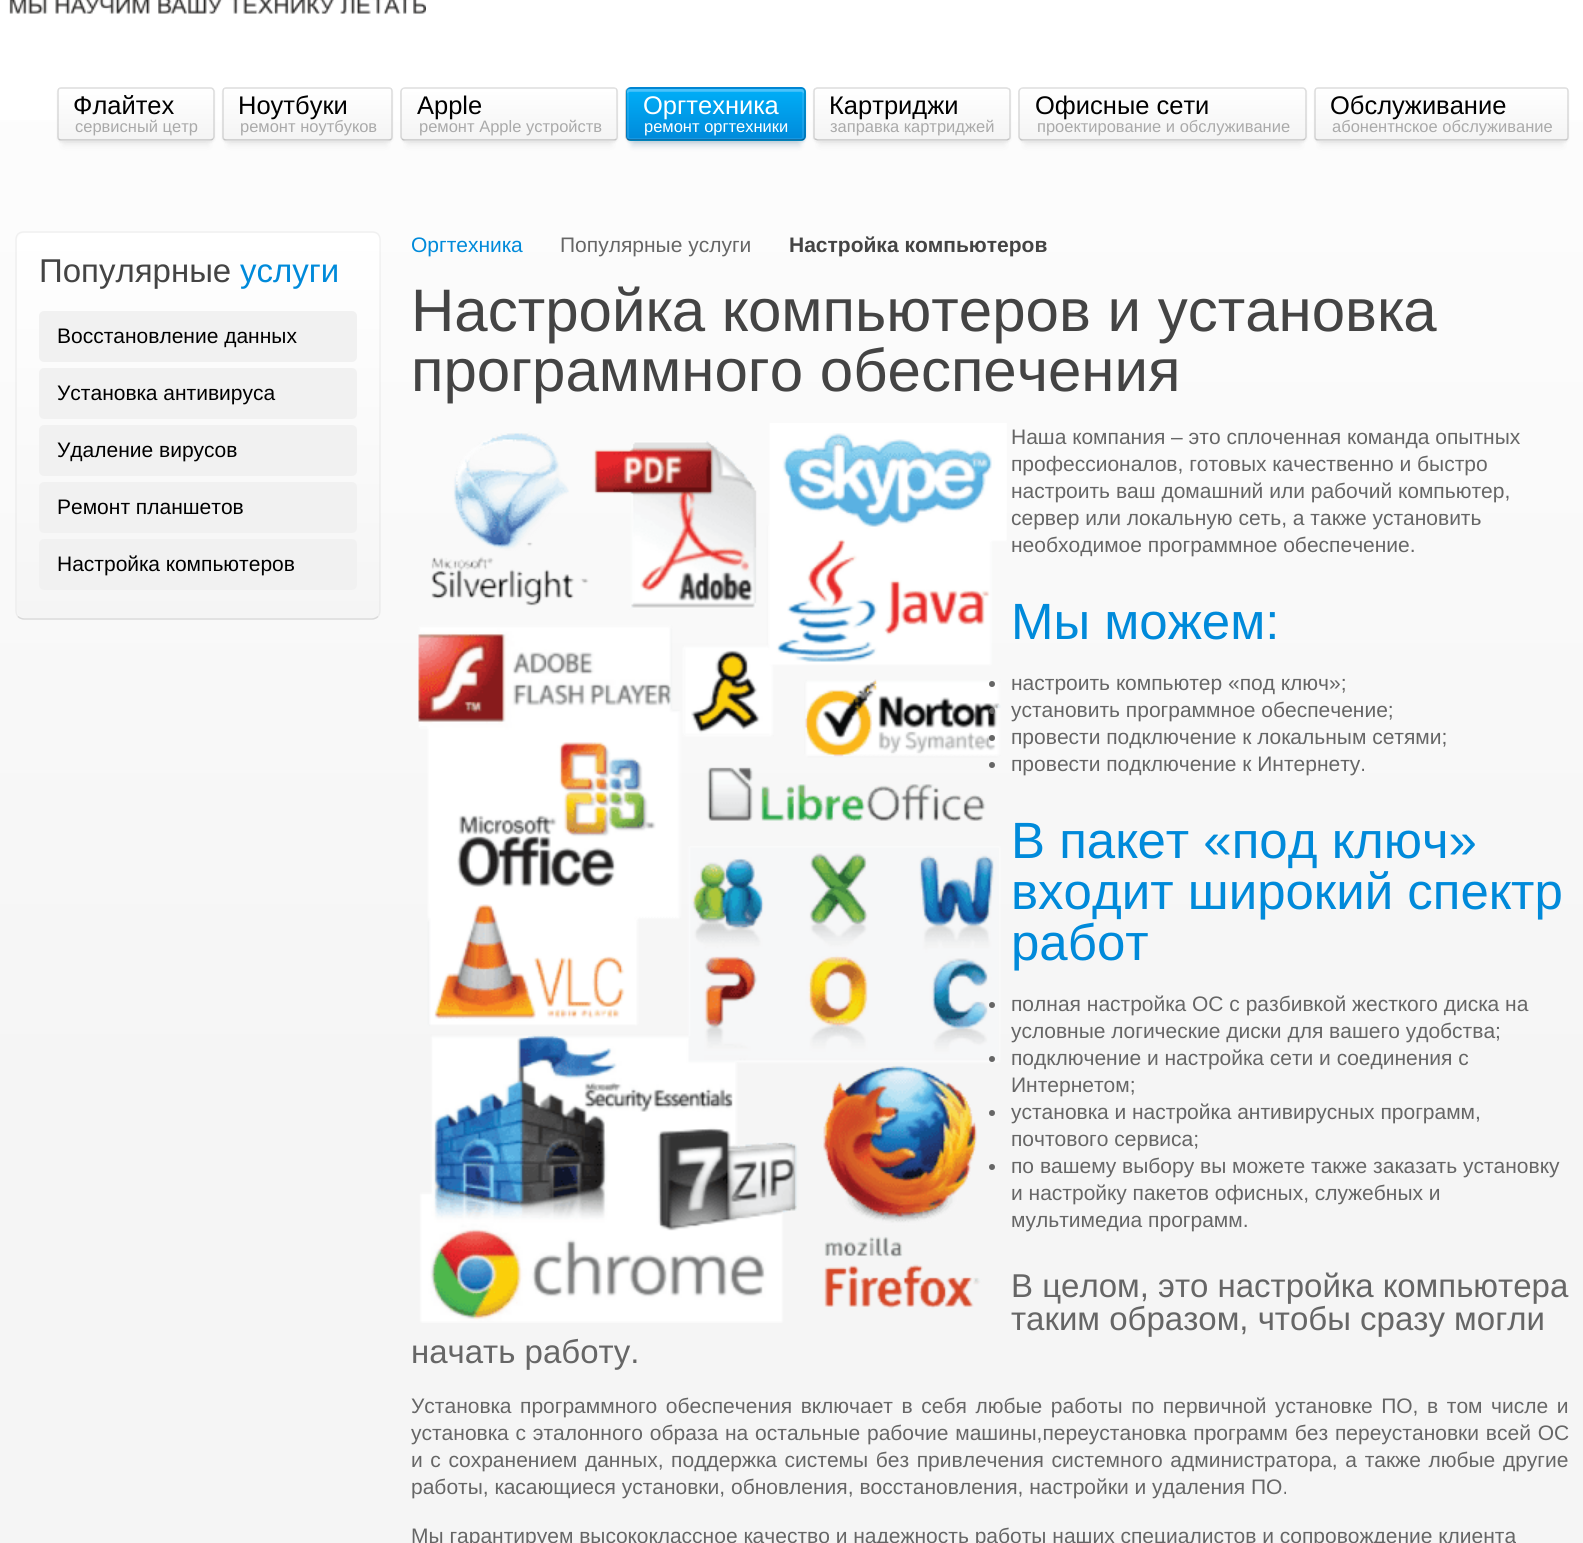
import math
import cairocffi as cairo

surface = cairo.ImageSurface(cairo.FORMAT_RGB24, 1583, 1543)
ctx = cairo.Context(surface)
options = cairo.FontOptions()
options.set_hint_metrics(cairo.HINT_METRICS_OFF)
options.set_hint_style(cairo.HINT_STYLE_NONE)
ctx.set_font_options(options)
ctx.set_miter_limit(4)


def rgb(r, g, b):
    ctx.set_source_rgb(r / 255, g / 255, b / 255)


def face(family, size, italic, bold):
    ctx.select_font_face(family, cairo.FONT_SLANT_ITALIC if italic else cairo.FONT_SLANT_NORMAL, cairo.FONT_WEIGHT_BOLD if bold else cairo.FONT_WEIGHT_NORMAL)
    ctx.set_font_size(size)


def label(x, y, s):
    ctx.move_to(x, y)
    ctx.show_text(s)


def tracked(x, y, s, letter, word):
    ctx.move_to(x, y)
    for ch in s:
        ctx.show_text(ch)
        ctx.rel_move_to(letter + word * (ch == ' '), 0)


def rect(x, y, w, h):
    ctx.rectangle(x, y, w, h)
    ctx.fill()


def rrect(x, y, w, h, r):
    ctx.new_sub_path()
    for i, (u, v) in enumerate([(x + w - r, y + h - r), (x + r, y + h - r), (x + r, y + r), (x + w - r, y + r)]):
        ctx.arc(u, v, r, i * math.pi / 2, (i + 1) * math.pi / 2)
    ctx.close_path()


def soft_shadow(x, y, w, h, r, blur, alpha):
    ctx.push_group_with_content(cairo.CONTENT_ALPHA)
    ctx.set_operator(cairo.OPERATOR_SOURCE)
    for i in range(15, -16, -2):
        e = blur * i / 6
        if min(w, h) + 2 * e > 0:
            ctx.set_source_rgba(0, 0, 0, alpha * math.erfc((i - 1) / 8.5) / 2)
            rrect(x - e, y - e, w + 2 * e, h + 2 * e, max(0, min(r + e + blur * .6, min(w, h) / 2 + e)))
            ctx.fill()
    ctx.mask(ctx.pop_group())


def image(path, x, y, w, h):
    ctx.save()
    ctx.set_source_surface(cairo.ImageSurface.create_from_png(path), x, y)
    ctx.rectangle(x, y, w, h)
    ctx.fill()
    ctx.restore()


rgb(255, 255, 255)
ctx.paint()
gradient = cairo.LinearGradient(792, -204, 792, 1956)
gradient.add_color_stop_rgba(0, 1, 1, 1, 1)
gradient.add_color_stop_rgba(0.6, 0.961, 0.961, 0.961, 1)
ctx.set_source(gradient)
rect(0, 120, 1583, 1423)
image('image0.png', 9, 0, 417, 14)
rgb(0, 0, 0)
soft_shadow(63, 104, 146, 42, 0, 3, 0.05)
soft_shadow(57, 89, 158, 54, 5, 1, 0.05)
ctx.save()
rrect(57, 87, 158, 54, 5)
ctx.clip()
gradient = cairo.LinearGradient(136, 37, 136, 89)
gradient.add_color_stop_rgba(0, 1, 1, 1, 1)
gradient.add_color_stop_rgba(1, 0.957, 0.957, 0.957, 1)
ctx.set_source(gradient)
rect(57, 87, 158, 2)
gradient = cairo.LinearGradient(136, 88, 136, 140)
gradient.add_color_stop_rgba(0, 1, 1, 1, 1)
gradient.add_color_stop_rgba(1, 0.957, 0.957, 0.957, 1)
ctx.set_source(gradient)
rect(57, 89, 158, 51)
gradient = cairo.LinearGradient(136, 140, 136, 191)
gradient.add_color_stop_rgba(0, 1, 1, 1, 1)
gradient.add_color_stop_rgba(1, 0.957, 0.957, 0.957, 1)
ctx.set_source(gradient)
rect(57, 140, 158, 1)
ctx.restore()
ctx.new_path()
ctx.move_to(59, 89)
ctx.curve_to(59.5, 88, 60.5, 88, 61.5, 88)
ctx.line_to(210, 88)
ctx.curve_to(211, 88, 212, 88, 212.5, 89)
rgb(224, 224, 224)
ctx.set_line_width(1.5)
ctx.stroke()
ctx.new_path()
ctx.move_to(212.5, 89)
ctx.curve_to(213.5, 89.5, 214, 90.5, 214, 91.5)
ctx.line_to(214, 136.5)
ctx.curve_to(214, 137.5, 213.5, 138.5, 212.5, 139)
ctx.set_source_rgba(0, 0, 0, 0.14)
ctx.stroke()
ctx.new_path()
ctx.move_to(212.5, 139)
ctx.curve_to(212, 140, 211, 140, 210, 140)
ctx.line_to(61.5, 140)
ctx.curve_to(60.5, 140, 59.5, 140, 59, 139)
ctx.set_source_rgba(0, 0, 0, 0.2)
ctx.stroke()
ctx.new_path()
ctx.move_to(59, 139)
ctx.curve_to(58, 138.5, 58, 137.5, 58, 136.5)
ctx.line_to(58, 91.5)
ctx.curve_to(58, 90.5, 58, 89.5, 59, 89)
ctx.set_source_rgba(0, 0, 0, 0.14)
ctx.stroke()
face('Liberation Sans', 25.5, 0, 0)
rgb(0, 0, 0)
label(73, 114, 'Флайтех')
face('Liberation Sans', 16.5, 0, 0)
rgb(170, 170, 170)
label(75, 132, 'сервисный цетр')
rgb(0, 0, 0)
soft_shadow(228, 104, 159, 42, 0, 3, 0.05)
soft_shadow(222, 89, 171, 54, 5, 1, 0.05)
ctx.save()
rrect(222, 87, 171, 54, 5)
ctx.clip()
gradient = cairo.LinearGradient(308, 37, 308, 89)
gradient.add_color_stop_rgba(0, 1, 1, 1, 1)
gradient.add_color_stop_rgba(1, 0.957, 0.957, 0.957, 1)
ctx.set_source(gradient)
rect(222, 87, 171, 2)
gradient = cairo.LinearGradient(308, 88, 308, 140)
gradient.add_color_stop_rgba(0, 1, 1, 1, 1)
gradient.add_color_stop_rgba(1, 0.957, 0.957, 0.957, 1)
ctx.set_source(gradient)
rect(222, 89, 171, 51)
gradient = cairo.LinearGradient(308, 140, 308, 191)
gradient.add_color_stop_rgba(0, 1, 1, 1, 1)
gradient.add_color_stop_rgba(1, 0.957, 0.957, 0.957, 1)
ctx.set_source(gradient)
rect(222, 140, 171, 1)
ctx.restore()
ctx.new_path()
ctx.move_to(224, 89)
ctx.curve_to(224.5, 88, 225.5, 88, 226.5, 88)
ctx.line_to(388.5, 88)
ctx.curve_to(389.5, 88, 390.5, 88, 391, 89)
rgb(224, 224, 224)
ctx.stroke()
ctx.new_path()
ctx.move_to(391, 89)
ctx.curve_to(392, 89.5, 392, 90.5, 392, 91.5)
ctx.line_to(392, 136.5)
ctx.curve_to(392, 137.5, 392, 138.5, 391, 139)
ctx.set_source_rgba(0, 0, 0, 0.14)
ctx.stroke()
ctx.new_path()
ctx.move_to(391, 139)
ctx.curve_to(390.5, 140, 389.5, 140, 388.5, 140)
ctx.line_to(226.5, 140)
ctx.curve_to(225.5, 140, 224.5, 140, 224, 139)
ctx.set_source_rgba(0, 0, 0, 0.2)
ctx.stroke()
ctx.new_path()
ctx.move_to(224, 139)
ctx.curve_to(223, 138.5, 223, 137.5, 223, 136.5)
ctx.line_to(223, 91.5)
ctx.curve_to(223, 90.5, 223, 89.5, 224, 89)
ctx.set_source_rgba(0, 0, 0, 0.14)
ctx.stroke()
face('Liberation Sans', 25.5, 0, 0)
rgb(0, 0, 0)
label(238, 114, 'Ноутбуки')
face('Liberation Sans', 16.5, 0, 0)
rgb(170, 170, 170)
label(240, 132, 'ремонт ноутбуков')
rgb(0, 0, 0)
soft_shadow(407, 104, 205, 42, 0, 3, 0.05)
soft_shadow(401, 89, 217, 54, 5, 1, 0.05)
ctx.save()
rrect(401, 87, 217, 54, 5)
ctx.clip()
gradient = cairo.LinearGradient(509, 37, 509, 89)
gradient.add_color_stop_rgba(0, 1, 1, 1, 1)
gradient.add_color_stop_rgba(1, 0.957, 0.957, 0.957, 1)
ctx.set_source(gradient)
rect(401, 87, 217, 2)
gradient = cairo.LinearGradient(509, 88, 509, 140)
gradient.add_color_stop_rgba(0, 1, 1, 1, 1)
gradient.add_color_stop_rgba(1, 0.957, 0.957, 0.957, 1)
ctx.set_source(gradient)
rect(401, 89, 217, 51)
gradient = cairo.LinearGradient(509, 140, 509, 191)
gradient.add_color_stop_rgba(0, 1, 1, 1, 1)
gradient.add_color_stop_rgba(1, 0.957, 0.957, 0.957, 1)
ctx.set_source(gradient)
rect(401, 140, 217, 1)
ctx.restore()
rgb(255, 255, 255)
ctx.new_path()
ctx.move_to(405, 92)
ctx.line_to(614, 92)
ctx.curve_to(615, 92, 616, 93, 616, 94)
ctx.line_to(616, 139)
ctx.curve_to(617, 139, 617, 138, 617, 137)
ctx.line_to(617, 92)
ctx.curve_to(617, 90, 616, 89, 614, 89)
ctx.line_to(405, 89)
ctx.curve_to(403, 89, 402, 90, 402, 92)
ctx.line_to(402, 94)
ctx.curve_to(402, 93, 403, 92, 405, 92)
ctx.close_path()
ctx.fill()
ctx.new_path()
ctx.move_to(402.5, 89)
ctx.curve_to(403, 88, 404, 88, 405, 88)
ctx.line_to(613.5, 88)
ctx.curve_to(614.5, 88, 615.5, 88, 616, 89)
ctx.set_source_rgba(0, 0, 0, 0.08)
ctx.stroke()
ctx.new_path()
ctx.move_to(616, 89)
ctx.curve_to(617, 89.5, 617, 90.5, 617, 91.5)
ctx.line_to(617, 136.5)
ctx.curve_to(617, 137.5, 617, 138.5, 616, 139)
ctx.set_source_rgba(0, 0, 0, 0.14)
ctx.stroke()
ctx.new_path()
ctx.move_to(616, 139)
ctx.curve_to(615.5, 140, 614.5, 140, 613.5, 140)
ctx.line_to(405, 140)
ctx.curve_to(404, 140, 403, 140, 402.5, 139)
ctx.set_source_rgba(0, 0, 0, 0.2)
ctx.stroke()
ctx.new_path()
ctx.move_to(402.5, 139)
ctx.curve_to(401.5, 138.5, 401, 137.5, 401, 136.5)
ctx.line_to(401, 91.5)
ctx.curve_to(401, 90.5, 401.5, 89.5, 402.5, 89)
ctx.set_source_rgba(0, 0, 0, 0.14)
ctx.stroke()
face('Liberation Sans', 25.5, 0, 0)
rgb(0, 0, 0)
label(417, 114, 'Apple')
face('Liberation Sans', 16.5, 0, 0)
rgb(170, 170, 170)
label(419, 132, 'ремонт Apple устройств')
rgb(0, 61, 104)
soft_shadow(632, 104, 168, 42, 0, 3, 0.15)
soft_shadow(626, 89, 180, 54, 5, 1, 0.1)
ctx.save()
rrect(626, 87, 180, 54, 5)
ctx.clip()
gradient = cairo.LinearGradient(716, 37, 716, 89)
gradient.add_color_stop_rgba(0, 0, 0.686, 0.973, 1)
gradient.add_color_stop_rgba(1, 0, 0.541, 0.855, 1)
ctx.set_source(gradient)
rect(626, 87, 180, 2)
gradient = cairo.LinearGradient(716, 88, 716, 140)
gradient.add_color_stop_rgba(0, 0, 0.686, 0.973, 1)
gradient.add_color_stop_rgba(1, 0, 0.541, 0.855, 1)
ctx.set_source(gradient)
rect(626, 89, 180, 51)
gradient = cairo.LinearGradient(716, 140, 716, 191)
gradient.add_color_stop_rgba(0, 0, 0.686, 0.973, 1)
gradient.add_color_stop_rgba(1, 0, 0.541, 0.855, 1)
ctx.set_source(gradient)
rect(626, 140, 180, 1)
ctx.restore()
rrect(628, 90, 175, 49, 2)
ctx.set_source_rgba(0.478, 0.808, 1, 0.2)
ctx.set_line_width(2)
ctx.stroke()
ctx.set_source_rgba(0.753, 0.886, 1, 0.3)
ctx.new_path()
ctx.move_to(630, 92)
ctx.line_to(801, 92)
ctx.curve_to(803, 92, 804, 93, 804, 94)
ctx.line_to(804, 92)
ctx.curve_to(804, 90, 803, 89, 801, 89)
ctx.line_to(630, 89)
ctx.curve_to(628, 89, 627, 90, 627, 92)
ctx.line_to(627, 94)
ctx.curve_to(627, 93, 628, 92, 630, 92)
ctx.close_path()
ctx.fill()
ctx.new_path()
ctx.move_to(627.5, 89)
ctx.curve_to(628, 88, 629, 88, 630, 88)
ctx.line_to(801, 88)
ctx.curve_to(802, 88, 803, 88, 803.5, 89)
ctx.set_source_rgba(0, 0, 0, 0.05)
ctx.set_line_width(1.5)
ctx.stroke()
ctx.new_path()
ctx.move_to(803.5, 89)
ctx.curve_to(804.5, 89.5, 805, 90.5, 805, 91.5)
ctx.line_to(805, 136.5)
ctx.curve_to(805, 137.5, 804.5, 138.5, 803.5, 139)
ctx.set_source_rgba(0, 0, 0, 0.2)
ctx.stroke()
ctx.new_path()
ctx.move_to(803.5, 139)
ctx.curve_to(803, 140, 802, 140, 801, 140)
ctx.line_to(630, 140)
ctx.curve_to(629, 140, 628, 140, 627.5, 139)
ctx.set_source_rgba(0, 0, 0, 0.35)
ctx.stroke()
ctx.new_path()
ctx.move_to(627.5, 139)
ctx.curve_to(626.5, 138.5, 626, 137.5, 626, 136.5)
ctx.line_to(626, 91.5)
ctx.curve_to(626, 90.5, 626.5, 89.5, 627.5, 89)
ctx.set_source_rgba(0, 0, 0, 0.2)
ctx.stroke()
face('Liberation Sans', 25.5, 0, 0)
rgb(255, 255, 255)
label(643, 114, 'Оргтехника')
face('Liberation Sans', 16.5, 0, 0)
label(644, 132, 'ремонт оргтехники')
rgb(0, 0, 0)
soft_shadow(819, 104, 186, 42, 0, 3, 0.05)
soft_shadow(813, 89, 198, 54, 5, 1, 0.05)
ctx.save()
rrect(813, 87, 198, 54, 5)
ctx.clip()
gradient = cairo.LinearGradient(912, 37, 912, 89)
gradient.add_color_stop_rgba(0, 1, 1, 1, 1)
gradient.add_color_stop_rgba(1, 0.957, 0.957, 0.957, 1)
ctx.set_source(gradient)
rect(813, 87, 198, 2)
gradient = cairo.LinearGradient(912, 88, 912, 140)
gradient.add_color_stop_rgba(0, 1, 1, 1, 1)
gradient.add_color_stop_rgba(1, 0.957, 0.957, 0.957, 1)
ctx.set_source(gradient)
rect(813, 89, 198, 51)
gradient = cairo.LinearGradient(912, 140, 912, 191)
gradient.add_color_stop_rgba(0, 1, 1, 1, 1)
gradient.add_color_stop_rgba(1, 0.957, 0.957, 0.957, 1)
ctx.set_source(gradient)
rect(813, 140, 198, 1)
ctx.restore()
ctx.new_path()
ctx.move_to(815, 89)
ctx.line_to(817, 88)
ctx.line_to(975, 88)
ctx.line_to(1006.5, 88)
ctx.line_to(1009, 89)
rgb(224, 224, 224)
ctx.stroke()
ctx.new_path()
ctx.move_to(1009, 89)
ctx.curve_to(1010, 89.5, 1010, 90.5, 1010, 91.5)
ctx.line_to(1010, 136.5)
ctx.curve_to(1010, 137.5, 1010, 138.5, 1009, 139)
ctx.set_source_rgba(0, 0, 0, 0.14)
ctx.stroke()
ctx.new_path()
ctx.move_to(1009, 139)
ctx.line_to(1007, 140)
ctx.line_to(849, 140)
ctx.line_to(817.5, 140)
ctx.line_to(815, 139)
ctx.set_source_rgba(0, 0, 0, 0.2)
ctx.stroke()
ctx.new_path()
ctx.move_to(815, 139)
ctx.curve_to(814, 138.5, 814, 137.5, 814, 136.5)
ctx.line_to(814, 91.5)
ctx.curve_to(814, 90.5, 814, 89.5, 815, 89)
ctx.set_source_rgba(0, 0, 0, 0.14)
ctx.stroke()
face('Liberation Sans', 25.5, 0, 0)
rgb(0, 0, 0)
label(829, 114, 'Картриджи')
face('Liberation Sans', 16.5, 0, 0)
rgb(170, 170, 170)
label(830, 132, 'заправка картриджей')
rgb(0, 0, 0)
soft_shadow(1025, 104, 276, 42, 0, 3, 0.05)
soft_shadow(1019, 89, 288, 54, 5, 1, 0.05)
ctx.save()
rrect(1019, 87, 288, 54, 5)
ctx.clip()
gradient = cairo.LinearGradient(1163, 37, 1163, 89)
gradient.add_color_stop_rgba(0, 1, 1, 1, 1)
gradient.add_color_stop_rgba(1, 0.957, 0.957, 0.957, 1)
ctx.set_source(gradient)
rect(1019, 87, 288, 2)
gradient = cairo.LinearGradient(1163, 88, 1163, 140)
gradient.add_color_stop_rgba(0, 1, 1, 1, 1)
gradient.add_color_stop_rgba(1, 0.957, 0.957, 0.957, 1)
ctx.set_source(gradient)
rect(1019, 89, 288, 51)
gradient = cairo.LinearGradient(1163, 139, 1163, 191)
gradient.add_color_stop_rgba(0, 1, 1, 1, 1)
gradient.add_color_stop_rgba(1, 0.957, 0.957, 0.957, 1)
ctx.set_source(gradient)
rect(1019, 140, 288, 1)
ctx.restore()
ctx.new_path()
ctx.move_to(1020.5, 89)
ctx.curve_to(1021, 88, 1022, 88, 1023, 88)
ctx.line_to(1302, 88)
ctx.curve_to(1303, 88, 1304, 88, 1304.5, 89)
ctx.set_source_rgba(0, 0, 0, 0.08)
ctx.stroke()
ctx.new_path()
ctx.move_to(1304.5, 89)
ctx.curve_to(1305.5, 89.5, 1306, 90.5, 1306, 91.5)
ctx.line_to(1306, 136.5)
ctx.curve_to(1306, 137.5, 1305.5, 138.5, 1304.5, 139)
ctx.set_source_rgba(0, 0, 0, 0.14)
ctx.stroke()
ctx.new_path()
ctx.move_to(1304.5, 139)
ctx.curve_to(1304, 140, 1303, 140, 1302, 140)
ctx.line_to(1023, 140)
ctx.curve_to(1022, 140, 1021, 140, 1020.5, 139)
ctx.set_source_rgba(0, 0, 0, 0.2)
ctx.stroke()
ctx.new_path()
ctx.move_to(1020.5, 139)
ctx.curve_to(1019.5, 138.5, 1019, 137.5, 1019, 136.5)
ctx.line_to(1019, 91.5)
ctx.curve_to(1019, 90.5, 1019.5, 89.5, 1020.5, 89)
ctx.set_source_rgba(0, 0, 0, 0.14)
ctx.stroke()
face('Liberation Sans', 25.5, 0, 0)
rgb(0, 0, 0)
label(1035, 114, 'Офисные сети')
face('Liberation Sans', 16.5, 0, 0)
rgb(170, 170, 170)
label(1037, 132, 'проектирование и обслуживание')
rgb(0, 0, 0)
soft_shadow(1320, 104, 243, 42, 0, 3, 0.05)
soft_shadow(1314, 89, 255, 54, 5, 1, 0.05)
ctx.save()
rrect(1314, 87, 255, 54, 5)
ctx.clip()
gradient = cairo.LinearGradient(1442, 37, 1442, 89)
gradient.add_color_stop_rgba(0, 1, 1, 1, 1)
gradient.add_color_stop_rgba(1, 0.957, 0.957, 0.957, 1)
ctx.set_source(gradient)
rect(1314, 87, 255, 2)
gradient = cairo.LinearGradient(1442, 88, 1442, 140)
gradient.add_color_stop_rgba(0, 1, 1, 1, 1)
gradient.add_color_stop_rgba(1, 0.957, 0.957, 0.957, 1)
ctx.set_source(gradient)
rect(1314, 89, 255, 51)
gradient = cairo.LinearGradient(1442, 139, 1442, 191)
gradient.add_color_stop_rgba(0, 1, 1, 1, 1)
gradient.add_color_stop_rgba(1, 0.957, 0.957, 0.957, 1)
ctx.set_source(gradient)
rect(1314, 140, 255, 1)
ctx.restore()
ctx.new_path()
ctx.move_to(1316, 89)
ctx.curve_to(1316.5, 88, 1317.5, 88, 1318.5, 88)
ctx.line_to(1564.5, 88)
ctx.curve_to(1565.5, 88, 1566.5, 88, 1567, 89)
rgb(224, 224, 224)
ctx.stroke()
ctx.new_path()
ctx.move_to(1567, 89)
ctx.curve_to(1568, 89.5, 1568, 90.5, 1568, 91.5)
ctx.line_to(1568, 136.5)
ctx.curve_to(1568, 137.5, 1568, 138.5, 1567, 139)
ctx.set_source_rgba(0, 0, 0, 0.14)
ctx.stroke()
ctx.new_path()
ctx.move_to(1567, 139)
ctx.curve_to(1566.5, 140, 1565.5, 140, 1564.5, 140)
ctx.line_to(1318.5, 140)
ctx.curve_to(1317.5, 140, 1316.5, 140, 1316, 139)
ctx.set_source_rgba(0, 0, 0, 0.2)
ctx.stroke()
ctx.new_path()
ctx.move_to(1316, 139)
ctx.curve_to(1315, 138.5, 1315, 137.5, 1315, 136.5)
ctx.line_to(1315, 91.5)
ctx.curve_to(1315, 90.5, 1315, 89.5, 1316, 89)
ctx.set_source_rgba(0, 0, 0, 0.14)
ctx.stroke()
face('Liberation Sans', 25.5, 0, 0)
rgb(0, 0, 0)
label(1330, 114, 'Обслуживание')
face('Liberation Sans', 16.5, 0, 0)
rgb(170, 170, 170)
label(1332, 132, 'абонентнское обслуживание')
gradient = cairo.LinearGradient(198, 232, 198, 618)
gradient.add_color_stop_rgba(0, 1, 1, 1, 1)
gradient.add_color_stop_rgba(1, 0.961, 0.961, 0.961, 1)
ctx.set_source(gradient)
rrect(17, 233, 363, 385, 8)
ctx.fill()
ctx.new_path()
ctx.move_to(378, 616.5)
ctx.curve_to(376.5, 618, 374, 619, 372, 619)
ctx.line_to(24, 619)
ctx.curve_to(22, 619, 19.5, 618, 18, 616.5)
ctx.set_source_rgba(0, 0, 0, 0.13)
ctx.stroke()
ctx.new_path()
ctx.move_to(18, 616.5)
ctx.curve_to(16.5, 615, 16, 612.5, 16, 610.5)
ctx.line_to(16, 240)
ctx.curve_to(16, 238, 16.5, 235.5, 18, 234)
ctx.curve_to(19.5, 232.5, 22, 232, 24, 232)
ctx.line_to(372, 232)
ctx.curve_to(374, 232, 376.5, 232.5, 378, 234)
ctx.curve_to(379.5, 235.5, 380, 238, 380, 240)
ctx.line_to(380, 610.5)
ctx.curve_to(380, 612.5, 379.5, 615, 378, 616.5)
ctx.set_source_rgba(0, 0, 0, 0.05)
ctx.stroke()
face('Liberation Sans', 33, 0, 0)
rgb(68, 68, 68)
label(39, 282, 'Популярные')
rgb(0, 138, 218)
label(240, 282, 'услуги')
rgb(241, 241, 241)
rrect(39, 311, 318, 51, 5)
ctx.fill()
face('Liberation Sans', 21, 0, 0)
rgb(0, 0, 0)
label(57, 343, 'Восстановление данных')
rgb(241, 241, 241)
rrect(39, 368, 318, 51, 5)
ctx.fill()
rgb(0, 0, 0)
label(57, 400, 'Установка антивируса')
rgb(241, 241, 241)
rrect(39, 425, 318, 51, 5)
ctx.fill()
rgb(0, 0, 0)
label(57, 457, 'Удаление вирусов')
rgb(241, 241, 241)
rrect(39, 482, 318, 51, 5)
ctx.fill()
rgb(0, 0, 0)
label(57, 514, 'Ремонт планшетов')
rgb(241, 241, 241)
rrect(39, 539, 318, 51, 5)
ctx.fill()
rgb(0, 0, 0)
label(57, 571, 'Настройка компьютеров')
rgb(0, 138, 218)
label(411, 252, 'Оргтехника')
rgb(102, 102, 102)
label(560, 252, 'Популярные услуги')
face('Liberation Sans', 21, 0, 1)
rgb(68, 68, 68)
label(789, 252, 'Настройка компьютеров')
face('Liberation Sans', 60, 0, 0)
label(411, 331, 'Настройка компьютеров и установка')
label(411, 391, 'программного обеспечения')
image('image1.png', 418, 423, 589, 900)
face('Liberation Sans', 21, 0, 0)
rgb(102, 102, 102)
label(1011, 444, 'Наша компания – это сплоченная команда опытных')
label(1011, 471, 'профессионалов, готовых качественно и быстро')
label(1011, 498, 'настроить ваш домашний или рабочий компьютер,')
label(1011, 525, 'сервер или локальную сеть, а также установить')
label(1011, 552, 'необходимое программное обеспечение.')
face('Liberation Sans', 51, 0, 0)
rgb(0, 138, 218)
label(1011, 639, 'Мы можем:')
rgb(102, 102, 102)
ctx.new_path()
ctx.arc(992, 684, 3, 0, 2 * math.pi)
ctx.fill()
face('Liberation Sans', 21, 0, 0)
label(1011, 690, 'настроить компьютер «под ключ»;')
ctx.new_path()
ctx.arc(992, 711, 3, 0, 2 * math.pi)
ctx.fill()
label(1011, 717, 'установить программное обеспечение;')
ctx.new_path()
ctx.arc(992, 738, 3, 0, 2 * math.pi)
ctx.fill()
label(1011, 744, 'провести подключение к локальным сетями;')
ctx.new_path()
ctx.arc(992, 765, 3, 0, 2 * math.pi)
ctx.fill()
label(1011, 771, 'провести подключение к Интернету.')
face('Liberation Sans', 51, 0, 0)
rgb(0, 138, 218)
label(1011, 858, 'В пакет «под ключ»')
label(1011, 909, 'входит широкий спектр')
label(1011, 960, 'работ')
rgb(102, 102, 102)
ctx.new_path()
ctx.arc(992, 1005, 3, 0, 2 * math.pi)
ctx.fill()
face('Liberation Sans', 21, 0, 0)
label(1011, 1011, 'полная настройка ОС с разбивкой жесткого диска на')
label(1011, 1038, 'условные логические диски для вашего удобства;')
ctx.new_path()
ctx.arc(992, 1059, 3, 0, 2 * math.pi)
ctx.fill()
label(1011, 1065, 'подключение и настройка сети и соединения с')
label(1011, 1092, 'Интернетом;')
ctx.new_path()
ctx.arc(992, 1113, 3, 0, 2 * math.pi)
ctx.fill()
label(1011, 1119, 'установка и настройка антивирусных программ,')
label(1011, 1146, 'почтового сервиса;')
ctx.new_path()
ctx.arc(992, 1167, 3, 0, 2 * math.pi)
ctx.fill()
label(1011, 1173, 'по вашему выбору вы можете также заказать установку')
label(1011, 1200, 'и настройку пакетов офисных, служебных и')
label(1011, 1227, 'мультимедиа программ.')
face('Liberation Sans', 33, 0, 0)
label(1011, 1297, 'В целом, это настройка компьютера')
label(1011, 1330, 'таким образом, чтобы сразу могли')
label(411, 1363, 'начать работу.')
face('Liberation Sans', 21, 0, 0)
tracked(411, 1413, 'Установка программного обеспечения включает в себя любые работы по первичной установке ПО, в том числе и', 0, 2.75)
tracked(411, 1440, 'установка с эталонного образа на остальные рабочие машины,переустановка программ без переустановки всей ОС', 0, 1)
tracked(411, 1467, 'и с сохранением данных, поддержка системы без привлечения системного администратора, а также любые другие', 0, 1.8)
label(411, 1494, 'работы, касающиеся установки, обновления, восстановления, настройки и удаления ПО.')
label(411, 1543, 'Мы гарантируем высококлассное качество и надежность работы наших специалистов и сопровождение клиента')
surface.write_to_png('render.png')
